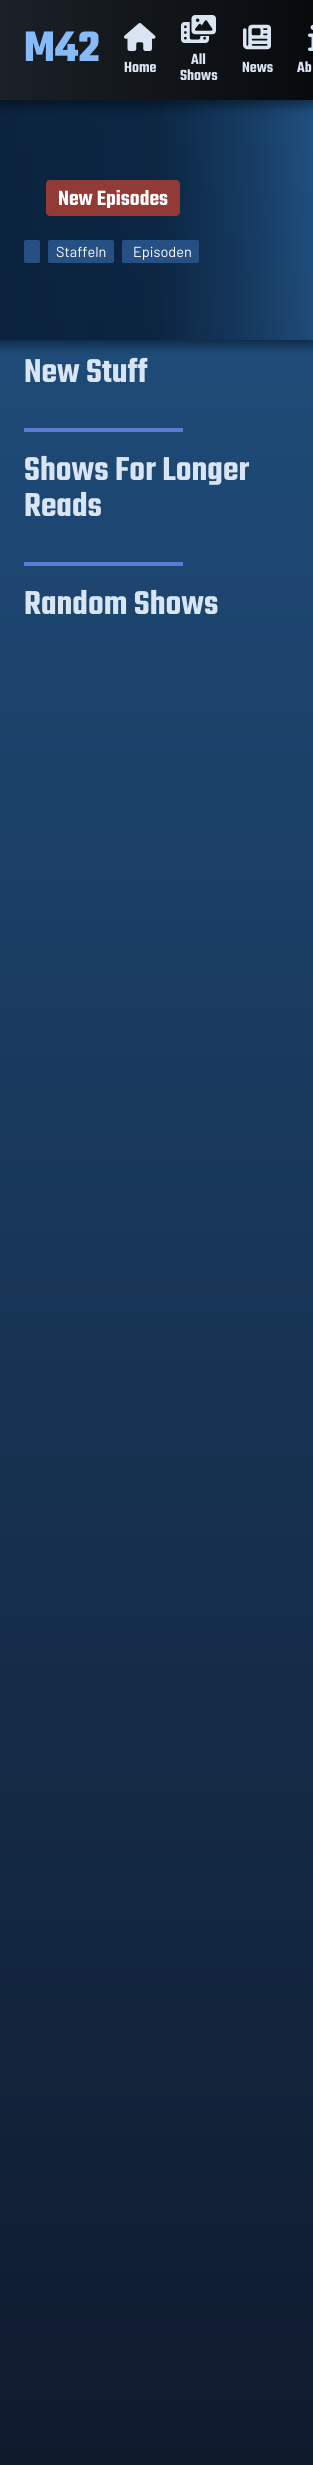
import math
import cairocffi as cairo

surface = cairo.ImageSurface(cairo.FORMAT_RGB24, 313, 2465)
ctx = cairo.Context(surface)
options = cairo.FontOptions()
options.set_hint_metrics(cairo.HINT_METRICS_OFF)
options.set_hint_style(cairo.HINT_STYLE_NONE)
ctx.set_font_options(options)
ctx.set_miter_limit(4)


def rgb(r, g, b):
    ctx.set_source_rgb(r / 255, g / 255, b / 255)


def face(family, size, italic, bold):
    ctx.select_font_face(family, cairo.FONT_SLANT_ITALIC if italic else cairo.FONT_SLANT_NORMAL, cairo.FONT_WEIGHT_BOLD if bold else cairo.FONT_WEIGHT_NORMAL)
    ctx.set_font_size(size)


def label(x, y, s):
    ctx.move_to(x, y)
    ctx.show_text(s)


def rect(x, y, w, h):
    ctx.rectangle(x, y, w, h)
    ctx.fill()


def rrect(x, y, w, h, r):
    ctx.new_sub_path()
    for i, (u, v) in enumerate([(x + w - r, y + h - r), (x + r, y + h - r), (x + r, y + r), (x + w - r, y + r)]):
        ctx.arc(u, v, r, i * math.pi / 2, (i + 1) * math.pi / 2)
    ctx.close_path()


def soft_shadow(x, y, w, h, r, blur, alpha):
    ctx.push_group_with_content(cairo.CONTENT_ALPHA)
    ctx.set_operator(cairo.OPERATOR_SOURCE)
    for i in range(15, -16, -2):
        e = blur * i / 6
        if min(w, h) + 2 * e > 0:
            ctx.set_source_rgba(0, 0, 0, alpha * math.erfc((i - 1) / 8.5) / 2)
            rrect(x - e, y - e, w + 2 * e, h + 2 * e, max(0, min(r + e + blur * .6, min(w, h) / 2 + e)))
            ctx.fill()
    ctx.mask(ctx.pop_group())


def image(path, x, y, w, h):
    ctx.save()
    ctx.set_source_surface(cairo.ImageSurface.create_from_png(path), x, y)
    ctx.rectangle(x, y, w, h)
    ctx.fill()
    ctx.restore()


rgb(255, 255, 255)
ctx.paint()
gradient = cairo.LinearGradient(156, 0, 157, 2465)
gradient.add_color_stop_rgba(0, 0.129, 0.325, 0.518, 1)
gradient.add_color_stop_rgba(1, 0.059, 0.102, 0.176, 1)
ctx.set_source(gradient)
rect(0, 100, 313, 2365)
ctx.save()
ctx.rectangle(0, 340, 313, 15)
ctx.clip()
rgb(0, 0, 0)
soft_shadow(-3, 97, 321, 248, 0, 6, 0.5)
ctx.restore()
gradient = cairo.LinearGradient(0, 220, 313, 220)
gradient.add_color_stop_rgba(0, 0.02, 0.094, 0.184, 0.8)
gradient.add_color_stop_rgba(0.5, 0.02, 0.094, 0.184, 0.75)
gradient.add_color_stop_rgba(0.8, 0.02, 0.094, 0.184, 0.35)
gradient.add_color_stop_rgba(1, 0.02, 0.094, 0.184, 0)
ctx.set_source(gradient)
rect(0, 100, 308, 240)
rgb(0, 0, 0)
soft_shadow(-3, -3, 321, 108, 0, 6, 0.5)
gradient = cairo.LinearGradient(0, 50, 313, 50)
gradient.add_color_stop_rgba(0, 0.106, 0.129, 0.153, 1)
gradient.add_color_stop_rgba(1, 0.031, 0.039, 0.051, 1)
ctx.set_source(gradient)
rect(0, 0, 313, 100)
face('Teko', 46, 0, 1)
rgb(135, 186, 249)
label(24, 61, 'M42')
image('image0.png', 124, 23, 32, 28)
face('Teko SemiBold', 16, 0, 0)
rgb(218, 229, 243)
label(124, 72, 'Home')
image('image1.png', 181, 15, 35, 28)
label(191, 64, 'All')
label(180, 80, 'Shows')
image('image2.png', 243, 24, 28, 26)
label(242, 72, 'News')
image('image3.png', 308, 24, 5, 27)
label(297, 72, 'Ab')
rgb(146, 58, 53)
rrect(46, 180, 134, 36, 4)
ctx.fill()
face('Teko SemiBold', 22.5, 0, 0)
rgb(255, 255, 255)
label(58, 205, 'New Episodes')
rgb(38, 80, 132)
rrect(24, 240, 16, 23, 2)
ctx.fill()
rrect(48, 240, 66, 23, 2)
ctx.fill()
face('Barlow', 14.5, 0, 0)
rgb(255, 255, 255)
label(56, 257, 'Staffeln')
rgb(38, 80, 132)
rrect(122, 240, 77, 23, 2)
ctx.fill()
rgb(255, 255, 255)
label(133, 257, 'Episoden')
face('Teko SemiBold', 36, 0, 0)
rgb(218, 229, 243)
label(24, 382, 'New Stuff')
rgb(93, 122, 215)
rect(24, 428, 159, 4)
rgb(218, 229, 243)
label(24, 480, 'Shows For Longer')
label(24, 516, 'Reads')
rgb(93, 122, 215)
rect(24, 562, 159, 4)
rgb(218, 229, 243)
label(24, 614, 'Random Shows')
surface.write_to_png('render.png')
